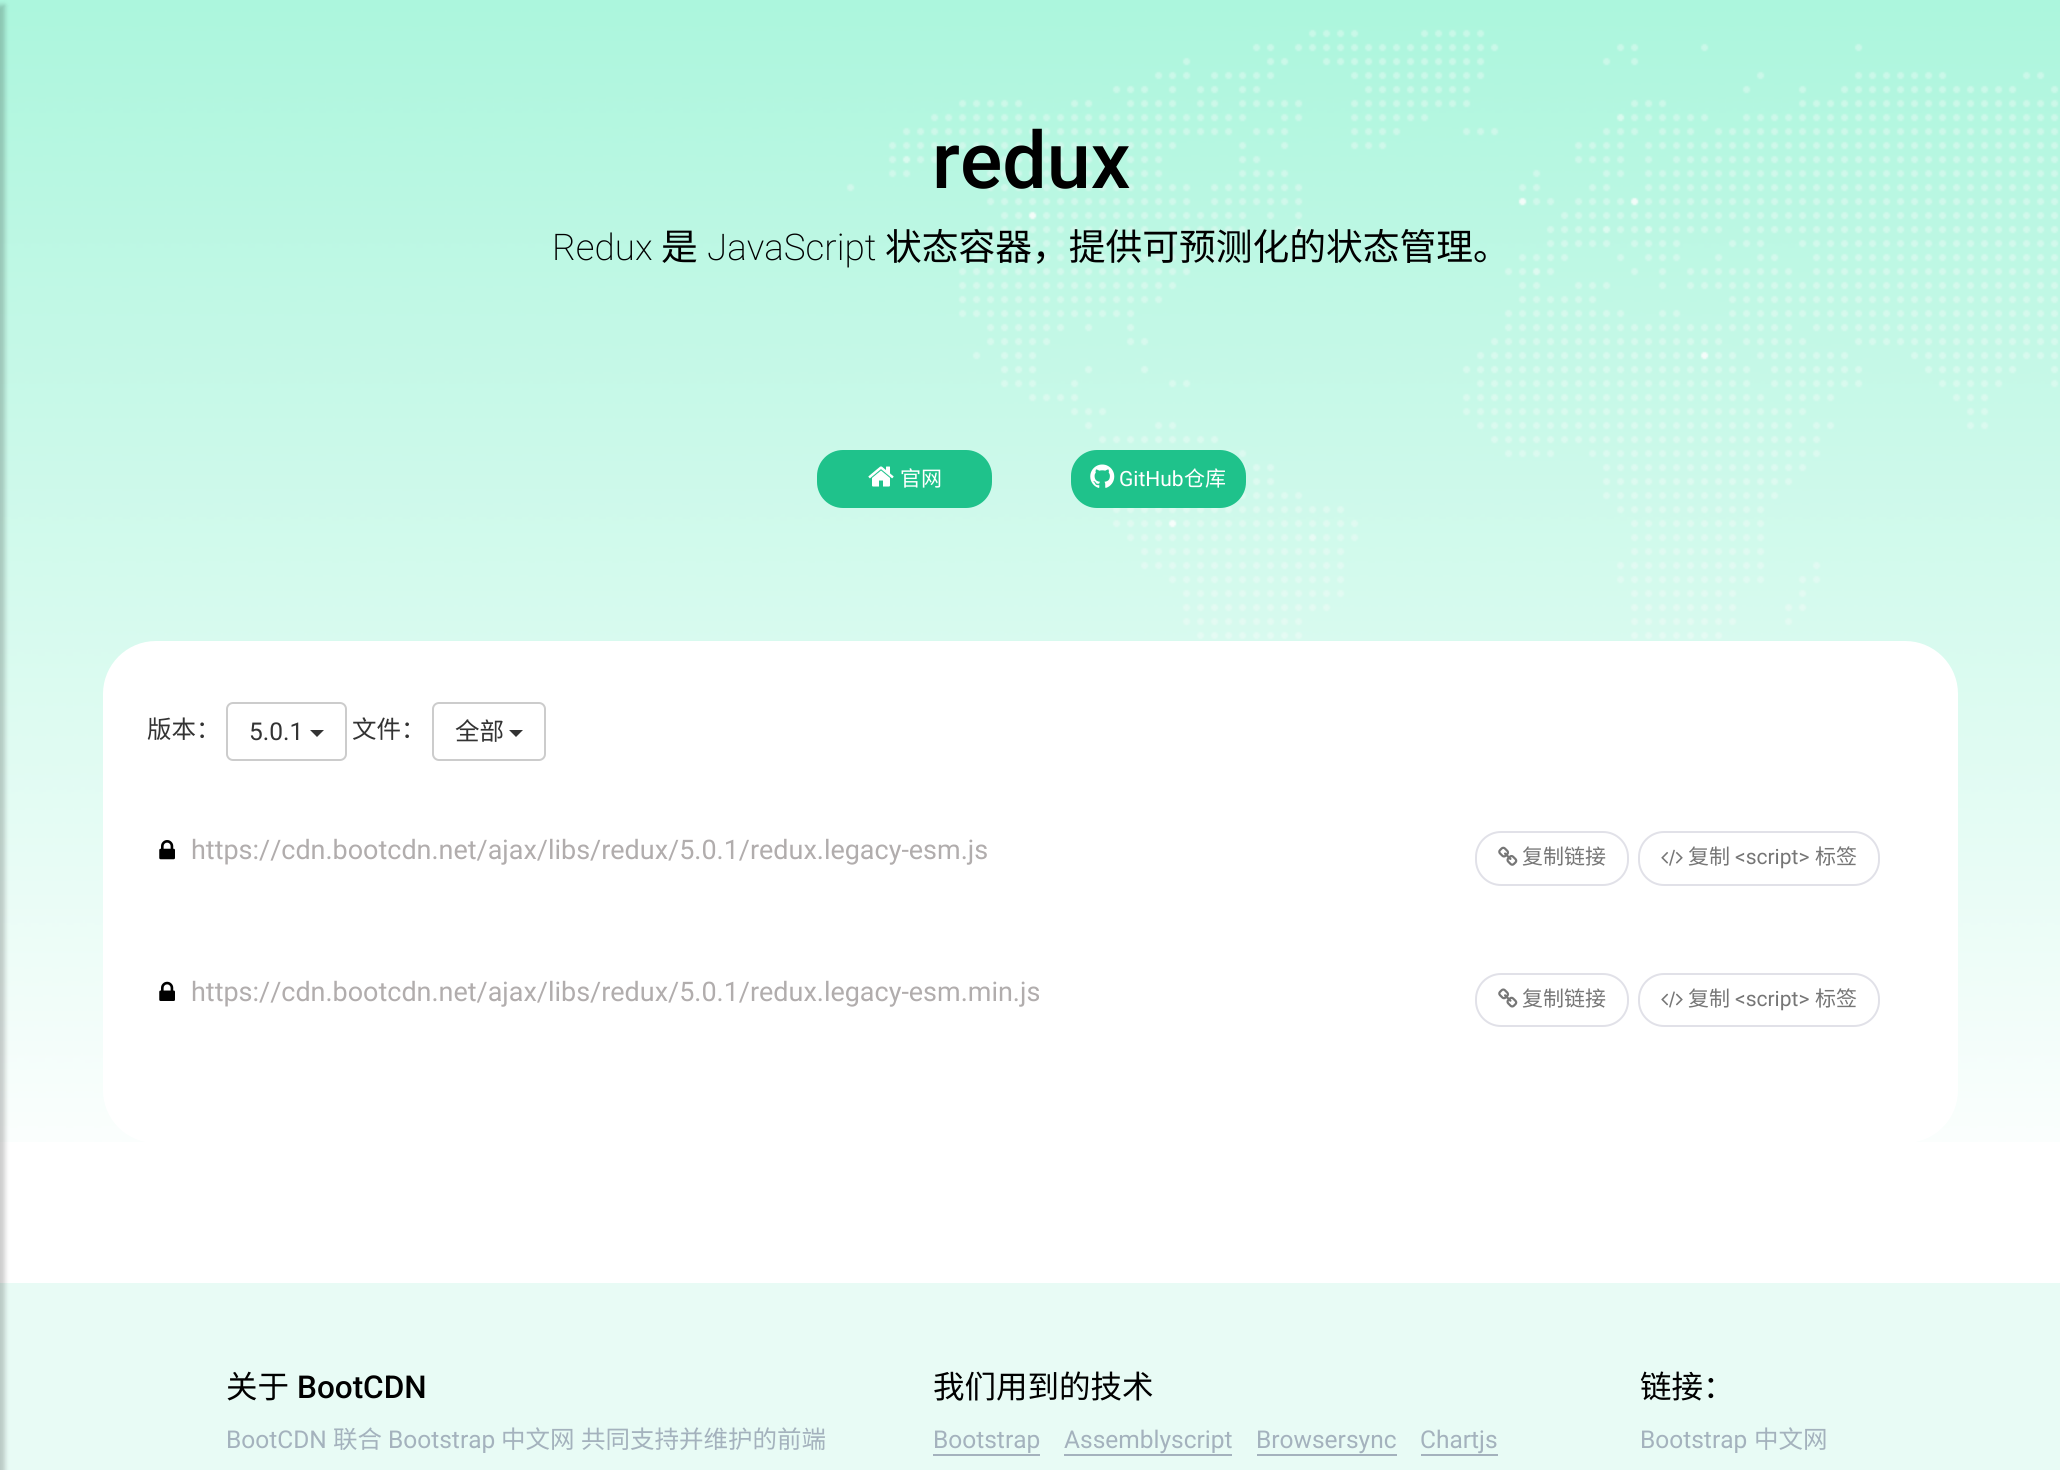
import math
import cairocffi as cairo

surface = cairo.ImageSurface(cairo.FORMAT_RGB24, 2060, 1470)
ctx = cairo.Context(surface)
options = cairo.FontOptions()
options.set_hint_metrics(cairo.HINT_METRICS_OFF)
options.set_hint_style(cairo.HINT_STYLE_NONE)
ctx.set_font_options(options)
ctx.set_miter_limit(4)


def rgb(r, g, b):
    ctx.set_source_rgb(r / 255, g / 255, b / 255)


def face(family, size, italic, bold):
    ctx.select_font_face(family, cairo.FONT_SLANT_ITALIC if italic else cairo.FONT_SLANT_NORMAL, cairo.FONT_WEIGHT_BOLD if bold else cairo.FONT_WEIGHT_NORMAL)
    ctx.set_font_size(size)


def label(x, y, s):
    ctx.move_to(x, y)
    ctx.show_text(s)


def rect(x, y, w, h):
    ctx.rectangle(x, y, w, h)
    ctx.fill()


def rrect(x, y, w, h, r):
    ctx.new_sub_path()
    for i, (u, v) in enumerate([(x + w - r, y + h - r), (x + r, y + h - r), (x + r, y + r), (x + w - r, y + r)]):
        ctx.arc(u, v, r, i * math.pi / 2, (i + 1) * math.pi / 2)
    ctx.close_path()


def soft_shadow(x, y, w, h, r, blur, alpha):
    ctx.push_group_with_content(cairo.CONTENT_ALPHA)
    ctx.set_operator(cairo.OPERATOR_SOURCE)
    for i in range(15, -16, -2):
        e = blur * i / 6
        if min(w, h) + 2 * e > 0:
            ctx.set_source_rgba(0, 0, 0, alpha * math.erfc((i - 1) / 8.5) / 2)
            rrect(x - e, y - e, w + 2 * e, h + 2 * e, max(0, min(r + e + blur * .6, min(w, h) / 2 + e)))
            ctx.fill()
    ctx.mask(ctx.pop_group())


def image(path, x, y, w, h):
    ctx.save()
    ctx.set_source_surface(cairo.ImageSurface.create_from_png(path), x, y)
    ctx.rectangle(x, y, w, h)
    ctx.fill()
    ctx.restore()


rgb(255, 255, 255)
ctx.paint()
image('image0.png', 0, 0, 2060, 1142)
rgb(232, 251, 245)
rect(0, 1283, 2060, 187)
rgb(0, 0, 0)
soft_shadow(-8, 5, 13, 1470, 0, 2.5, 0.2)
face('Roboto Medium', 79, 0, 0)
rgb(0, 0, 0)
label(932, 188, 'redux')
face('Roboto ExtraLight', 36.75, 0, 0)
label(552, 260, 'Redux')
face('Noto Sans CJK SC', 36.75, 0, 0)
label(661, 260, '是')
face('Roboto ExtraLight', 36.75, 0, 0)
label(707, 260, 'JavaScript')
face('Noto Sans CJK SC', 36.75, 0, 0)
label(885, 260, '状态容器，提供可预测化的状态管理。')
rgb(31, 194, 139)
rrect(818, 451, 173, 56, 25)
ctx.fill_preserve()
ctx.stroke()
image('image1.png', 868, 466, 26, 21)
face('Noto Sans CJK SC', 21, 0, 0)
rgb(255, 255, 255)
label(900, 486, '官网')
rgb(31, 194, 139)
rrect(1072, 451, 173, 56, 25)
ctx.fill_preserve()
ctx.stroke()
image('image2.png', 1090, 464, 25, 24)
face('Roboto', 21, 0, 0)
rgb(255, 255, 255)
label(1119, 486, 'GitHub')
face('Noto Sans CJK SC', 21, 0, 0)
label(1184, 486, '仓库')
rrect(103, 641, 1855, 502, 53)
ctx.fill()
face('Noto Sans CJK SC', 24.5, 0, 0)
rgb(51, 51, 51)
label(147, 738, '版本：')
rrect(227, 703, 119, 57, 6)
rgb(204, 204, 204)
ctx.stroke()
face('Roboto', 24.5, 0, 0)
rgb(51, 51, 51)
label(249, 740, '5.0.1')
ctx.new_path()
ctx.move_to(310, 730)
ctx.line_to(324, 730)
ctx.line_to(317, 737)
ctx.close_path()
ctx.fill()
face('Noto Sans CJK SC', 24.5, 0, 0)
label(352, 738, '文件：')
rrect(433, 703, 112, 57, 6)
rgb(204, 204, 204)
ctx.stroke()
rgb(51, 51, 51)
label(455, 740, '全部')
ctx.new_path()
ctx.move_to(509, 730)
ctx.line_to(523, 730)
ctx.line_to(516, 737)
ctx.close_path()
ctx.fill()
image('image3.png', 159, 840, 16, 20)
face('Roboto', 26.95, 0, 0)
rgb(177, 173, 173)
label(191, 859, 'https://cdn.bootcdn.net/ajax/libs/redux/5.0.1/redux.legacy-esm.js')
rrect(1476, 832, 152, 53, 25)
rgb(225, 225, 232)
ctx.stroke()
image('image4.png', 1498, 846, 20, 20)
face('Noto Sans CJK SC', 21, 0, 0)
rgb(118, 118, 118)
label(1522, 864, '复制链接')
rrect(1639, 832, 240, 53, 25)
rgb(225, 225, 232)
ctx.stroke()
image('image5.png', 1661, 849, 22, 17)
rgb(118, 118, 118)
label(1688, 864, '复制')
face('Roboto', 21, 0, 0)
label(1735, 864, '<script>')
face('Noto Sans CJK SC', 21, 0, 0)
label(1815, 864, '标签')
image('image6.png', 159, 981, 16, 20)
face('Roboto', 26.95, 0, 0)
rgb(177, 173, 173)
label(191, 1001, 'https://cdn.bootcdn.net/ajax/libs/redux/5.0.1/redux.legacy-esm.min.js')
rrect(1476, 974, 152, 52, 25)
rgb(225, 225, 232)
ctx.stroke()
image('image7.png', 1498, 988, 20, 20)
face('Noto Sans CJK SC', 21, 0, 0)
rgb(118, 118, 118)
label(1522, 1006, '复制链接')
rrect(1639, 974, 240, 52, 25)
rgb(225, 225, 232)
ctx.stroke()
image('image8.png', 1661, 991, 22, 17)
rgb(118, 118, 118)
label(1688, 1006, '复制')
face('Roboto', 21, 0, 0)
label(1735, 1006, '<script>')
face('Noto Sans CJK SC', 21, 0, 0)
label(1815, 1006, '标签')
face('Noto Sans CJK SC', 31.5, 0, 0)
rgb(0, 0, 0)
label(226, 1398, '关于')
face('Roboto Medium', 31.5, 0, 0)
label(297, 1398, 'BootCDN')
face('Roboto', 24.5, 0, 0)
rgb(164, 178, 189)
label(226, 1448, 'BootCDN')
face('Noto Sans CJK SC', 24.5, 0, 0)
label(333, 1448, '联合')
face('Roboto', 24.5, 0, 0)
label(388, 1448, 'Bootstrap')
face('Noto Sans CJK SC', 24.5, 0, 0)
label(501, 1448, '中文网')
label(581, 1448, '共同支持并维护的前端')
face('Noto Sans CJK SC', 31.5, 0, 0)
rgb(0, 0, 0)
label(933, 1398, '我们用到的技术')
face('Roboto', 24.5, 0, 0)
rgb(164, 178, 189)
label(933, 1448, 'Bootstrap')
rect(933, 1454, 107, 2)
label(1064, 1448, 'Assemblyscript')
rect(1064, 1454, 168, 2)
label(1256, 1448, 'Browsersync')
rect(1257, 1454, 140, 2)
label(1420, 1448, 'Chartjs')
rect(1421, 1454, 77, 2)
face('Noto Sans CJK SC', 31.5, 0, 0)
rgb(0, 0, 0)
label(1640, 1398, '链接：')
face('Roboto', 24.5, 0, 0)
rgb(164, 178, 189)
label(1640, 1448, 'Bootstrap')
face('Noto Sans CJK SC', 24.5, 0, 0)
label(1754, 1448, '中文网')
surface.write_to_png('render.png')
